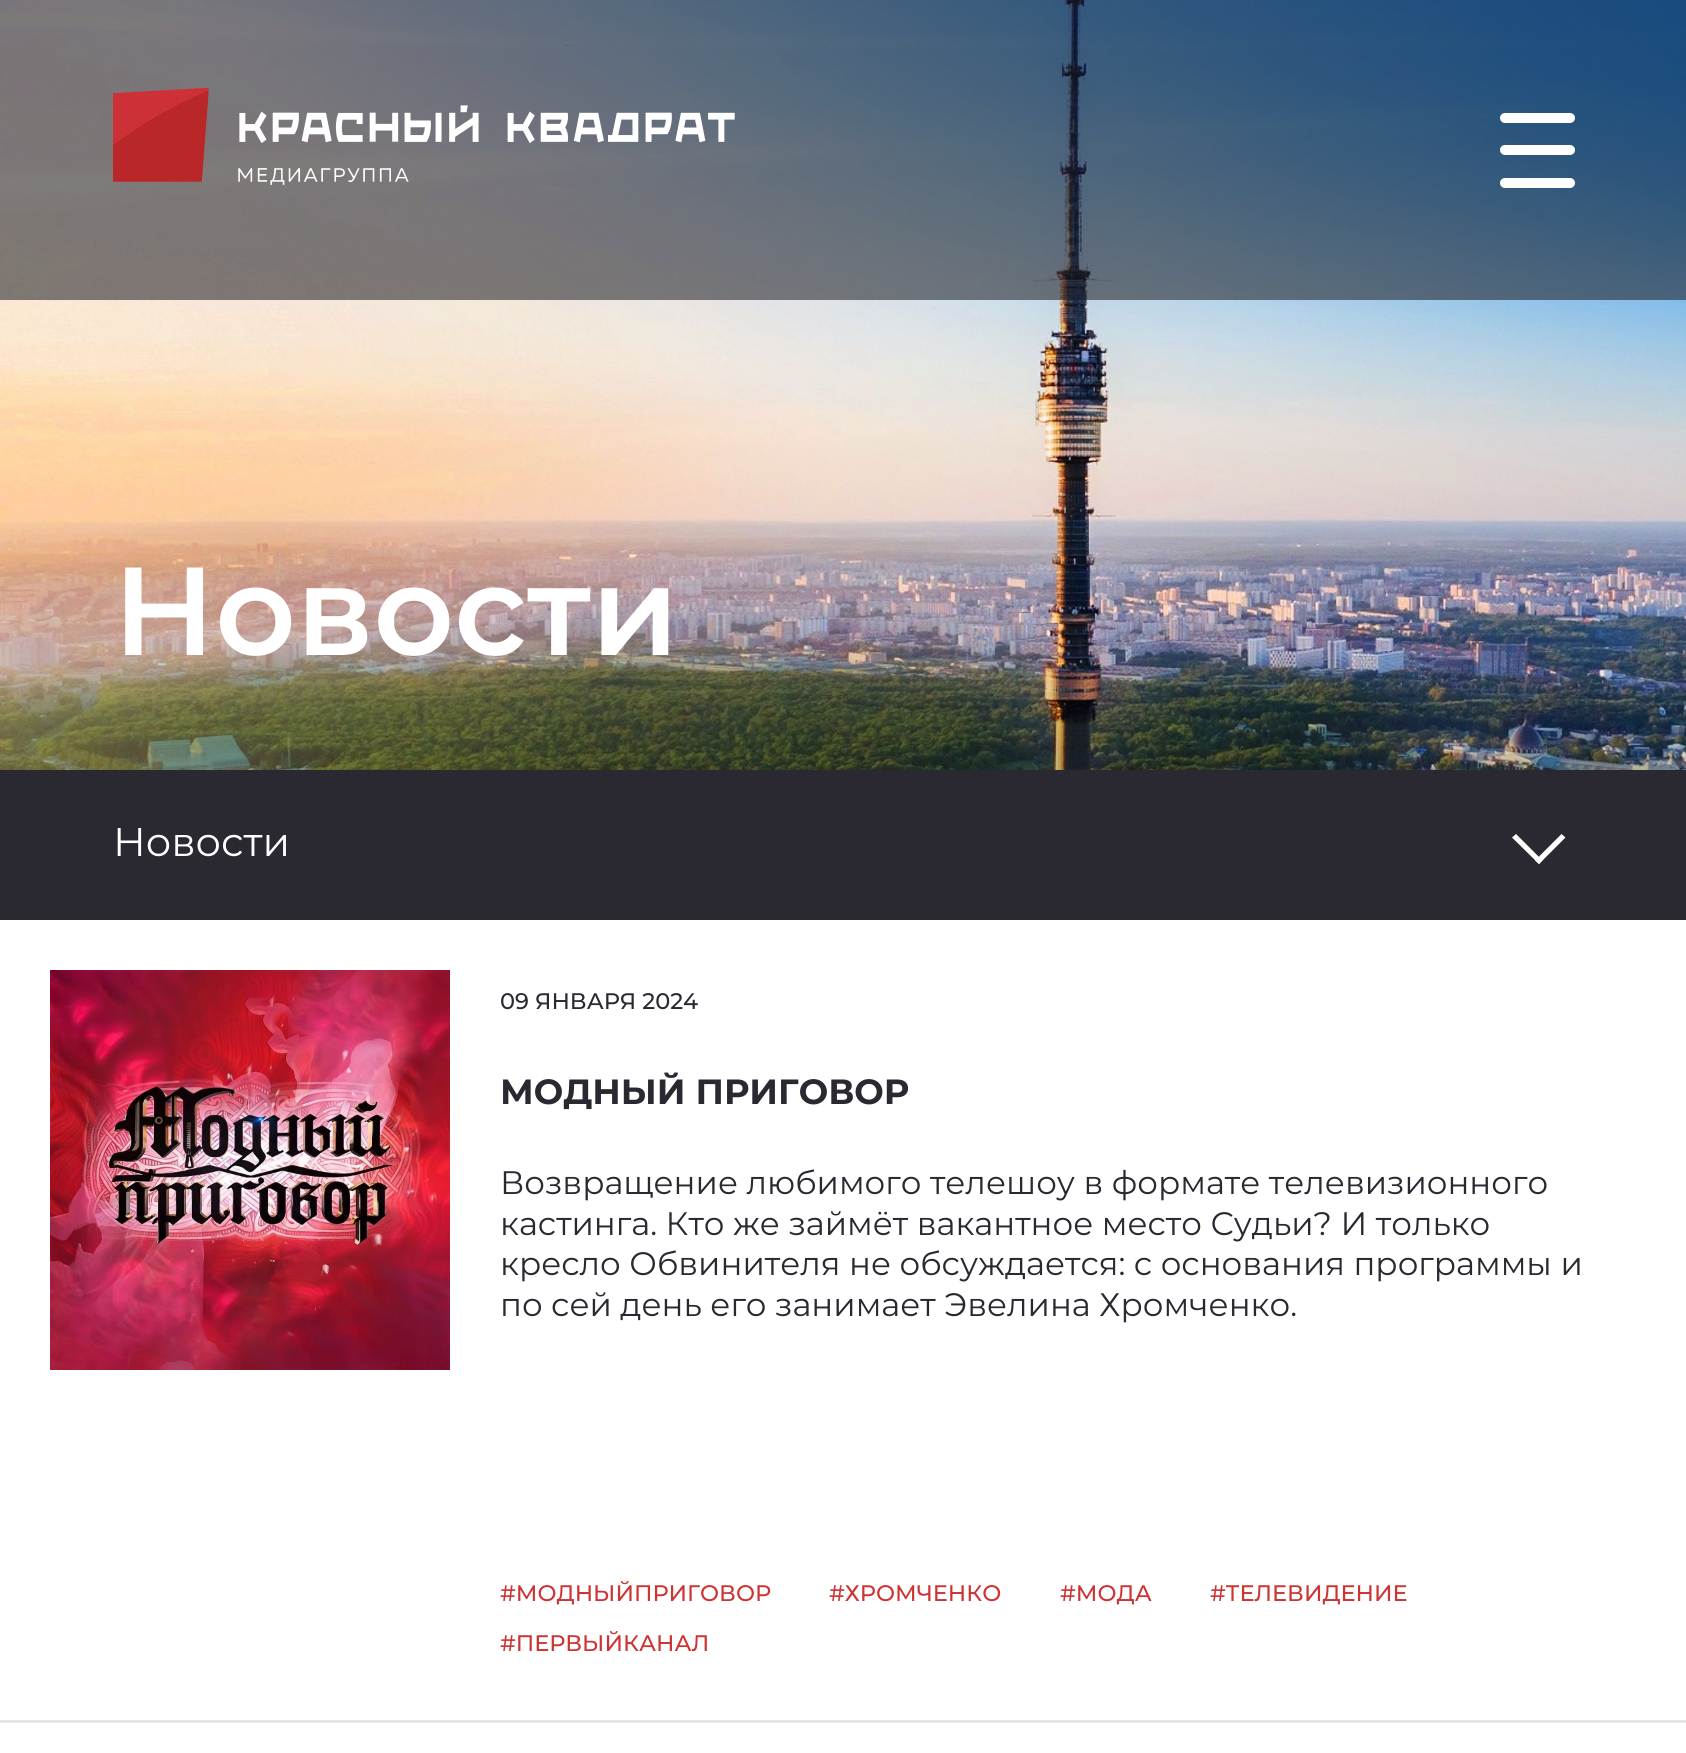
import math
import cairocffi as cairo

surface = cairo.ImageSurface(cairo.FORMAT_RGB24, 1686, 1753)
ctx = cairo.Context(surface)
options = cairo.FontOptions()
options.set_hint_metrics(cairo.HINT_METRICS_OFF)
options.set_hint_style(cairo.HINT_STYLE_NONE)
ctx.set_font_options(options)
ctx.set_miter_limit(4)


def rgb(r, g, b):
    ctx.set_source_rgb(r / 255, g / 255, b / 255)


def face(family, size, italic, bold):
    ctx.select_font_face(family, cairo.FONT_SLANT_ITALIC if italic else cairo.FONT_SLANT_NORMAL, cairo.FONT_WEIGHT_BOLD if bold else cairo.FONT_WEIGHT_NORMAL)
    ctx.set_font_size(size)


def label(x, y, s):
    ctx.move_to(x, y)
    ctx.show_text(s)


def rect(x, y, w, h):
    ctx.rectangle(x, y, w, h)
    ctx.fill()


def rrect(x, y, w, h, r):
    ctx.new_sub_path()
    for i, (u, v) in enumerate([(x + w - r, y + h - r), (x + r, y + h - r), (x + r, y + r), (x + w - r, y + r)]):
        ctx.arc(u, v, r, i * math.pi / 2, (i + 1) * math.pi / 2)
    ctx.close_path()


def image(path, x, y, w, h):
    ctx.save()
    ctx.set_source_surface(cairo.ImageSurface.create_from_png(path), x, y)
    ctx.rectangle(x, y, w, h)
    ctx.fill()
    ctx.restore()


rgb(255, 255, 255)
ctx.paint()
image('image1.png', 0, 0, 1686, 770)
ctx.set_source_rgba(0.106, 0.102, 0.125, 0.55)
rect(0, 0, 1686, 300)
image('image0.png', 113, 88, 622, 97)
rgb(255, 255, 255)
rrect(1500, 145, 75, 10, 5)
ctx.fill()
rrect(1500, 113, 75, 10, 5)
ctx.fill()
rrect(1500, 178, 75, 10, 5)
ctx.fill()
face('Montserrat SemiBold', 125, 0, 0)
label(113, 655, 'Новости')
rgb(42, 41, 49)
rect(0, 770, 1686, 150)
face('Montserrat', 40, 0, 0)
rgb(255, 255, 255)
label(113, 856, 'Новости')
ctx.new_path()
ctx.move_to(1539, 864)
ctx.line_to(1512, 837.5)
ctx.line_to(1516, 834)
ctx.line_to(1542.5, 860.5)
ctx.close_path()
ctx.fill()
ctx.new_path()
ctx.move_to(1539, 864)
ctx.line_to(1535, 860.5)
ctx.line_to(1561.5, 834)
ctx.line_to(1565.5, 837.5)
ctx.close_path()
ctx.fill()
image('image2.png', 50, 970, 400, 400)
face('Montserrat Medium', 22.5, 0, 0)
rgb(42, 41, 49)
label(500, 1009, '09 ЯНВАРЯ 2024')
face('Montserrat', 35, 0, 1)
label(500, 1104, 'МОДНЫЙ ПРИГОВОР')
face('Montserrat', 32.5, 0, 0)
label(500, 1194, 'Возвращение любимого телешоу в формате телевизионного')
label(500, 1235, 'кастинга. Кто же займёт вакантное место Судьи? И только')
label(500, 1275, 'кресло Обвинителя не обсуждается: с основания программы и')
label(500, 1316, 'по сей день его занимает Эвелина Хромченко.')
face('Montserrat Medium', 22.5, 0, 0)
rgb(205, 52, 51)
label(500, 1601, '#МОДНЫЙПРИГОВОР')
label(829, 1601, '#ХРОМЧЕНКО')
label(1060, 1601, '#МОДА')
label(1210, 1601, '#ТЕЛЕВИДЕНИЕ')
label(500, 1651, '#ПЕРВЫЙКАНАЛ')
rgb(229, 229, 229)
rect(0, 1720, 1686, 3)
surface.write_to_png('render.png')
